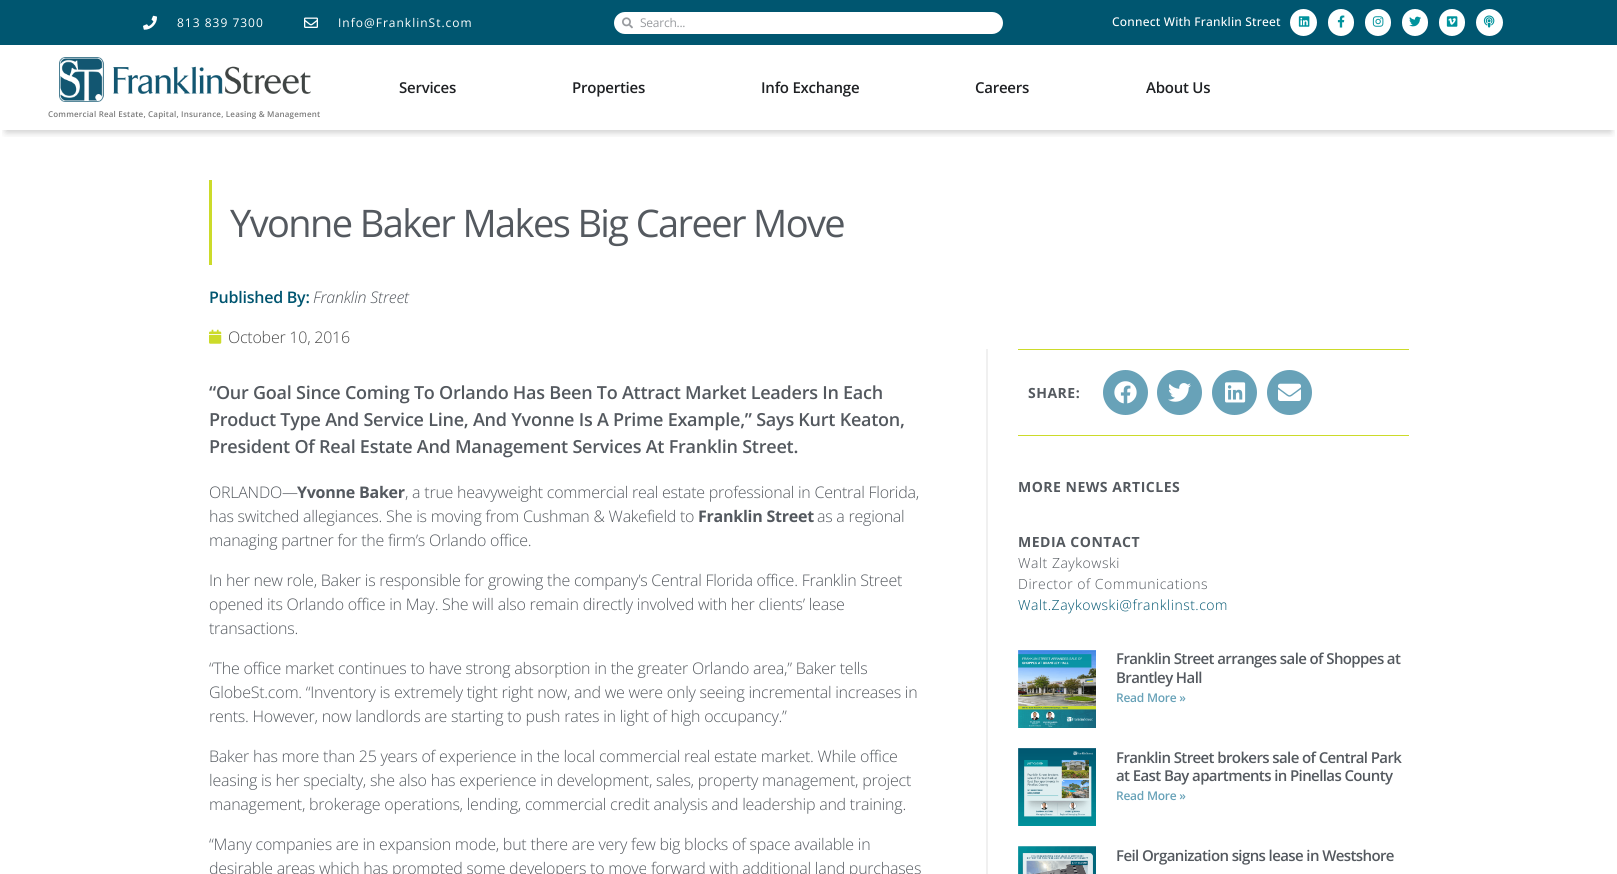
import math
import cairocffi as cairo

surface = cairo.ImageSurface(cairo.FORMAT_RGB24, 1617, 874)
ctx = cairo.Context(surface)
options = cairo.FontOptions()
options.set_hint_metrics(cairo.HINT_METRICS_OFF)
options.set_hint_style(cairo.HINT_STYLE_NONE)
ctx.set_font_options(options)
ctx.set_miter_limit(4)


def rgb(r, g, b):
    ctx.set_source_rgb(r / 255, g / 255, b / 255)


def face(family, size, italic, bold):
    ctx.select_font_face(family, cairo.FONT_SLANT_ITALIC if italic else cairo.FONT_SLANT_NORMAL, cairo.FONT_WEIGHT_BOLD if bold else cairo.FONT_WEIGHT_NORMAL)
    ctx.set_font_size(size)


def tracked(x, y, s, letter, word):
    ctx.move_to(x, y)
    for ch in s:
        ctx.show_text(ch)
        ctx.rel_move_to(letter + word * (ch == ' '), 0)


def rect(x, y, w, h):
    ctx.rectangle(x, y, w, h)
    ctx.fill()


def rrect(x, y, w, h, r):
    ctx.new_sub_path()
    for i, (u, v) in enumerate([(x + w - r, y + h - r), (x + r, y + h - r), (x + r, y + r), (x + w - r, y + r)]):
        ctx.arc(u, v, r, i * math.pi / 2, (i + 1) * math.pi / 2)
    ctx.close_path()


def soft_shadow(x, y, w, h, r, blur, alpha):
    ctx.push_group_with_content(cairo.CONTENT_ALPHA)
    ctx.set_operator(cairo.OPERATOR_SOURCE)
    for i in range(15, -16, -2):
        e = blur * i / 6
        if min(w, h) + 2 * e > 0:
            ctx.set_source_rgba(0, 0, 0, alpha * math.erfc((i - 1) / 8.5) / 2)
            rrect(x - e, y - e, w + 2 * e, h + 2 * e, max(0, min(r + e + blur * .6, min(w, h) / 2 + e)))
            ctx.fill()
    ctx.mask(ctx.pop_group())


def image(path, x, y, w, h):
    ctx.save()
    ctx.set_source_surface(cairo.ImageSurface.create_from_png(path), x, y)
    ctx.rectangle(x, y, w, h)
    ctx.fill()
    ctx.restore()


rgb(255, 255, 255)
ctx.paint()
rgb(0, 86, 112)
rect(0, 0, 1617, 45)
image('image0.png', 143, 15, 14, 15)
face('Open Sans', 12, 0, 0)
rgb(255, 255, 255)
tracked(177, 27, '813 839 7300', 1, 0)
image('image1.png', 304, 17, 14, 11)
tracked(338, 27, 'Info@FranklinSt.com', 1, 0)
rrect(614, 12, 389, 22, 11)
ctx.fill()
image('image2.png', 622, 17, 11, 12)
rgb(152, 155, 159)
tracked(640, 27, 'Search...', -0.25, 0)
face('Open Sans Medium', 12, 0, 0)
rgb(255, 255, 255)
tracked(1112, 26, 'Connect With Franklin Street', 0.2, 0)
ctx.new_path()
ctx.arc(1303.5, 22.5, 13.5, 0, 2 * math.pi)
ctx.fill()
image('image3.png', 1298, 16, 12, 11)
rrect(1328, 9, 26, 27, 13)
ctx.fill()
image('image4.png', 1337, 15, 8, 13)
rrect(1365, 9, 26, 27, 13)
ctx.fill()
image('image5.png', 1372, 16, 12, 11)
rrect(1402, 9, 26, 27, 13)
ctx.fill()
image('image6.png', 1409, 16, 12, 11)
rrect(1439, 9, 26, 27, 13)
ctx.fill()
image('image7.png', 1446, 16, 12, 11)
ctx.arc(1489.5, 22.5, 13.5, 0, 2 * math.pi)
ctx.fill()
image('image8.png', 1483, 15, 12, 13)
ctx.save()
ctx.rectangle(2, 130, 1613, 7)
ctx.clip()
rgb(0, 0, 0)
soft_shadow(6, 59, 1605, 73, 0, 4, 0.22)
ctx.restore()
face('Open Sans SemiBold', 15, 0, 0)
rgb(31, 33, 36)
tracked(399, 93, 'Services', -0.24, 0)
tracked(572, 93, 'Properties', -0.24, 0)
tracked(761, 93, 'Info Exchange', -0.24, 0)
tracked(975, 93, 'Careers', -0.24, 0)
tracked(1146, 93, 'About Us', -0.24, 0)
image('image9.png', 59, 57, 252, 45)
face('Open Sans SemiBold', 8, 0, 0)
rgb(122, 122, 122)
tracked(48, 117, 'Commercial Real Estate, Capital, Insurance, Leasing & Management', 0.2, 0)
rgb(204, 219, 42)
rect(209, 180, 3, 85)
face('Open Sans', 38, 0, 0)
rgb(84, 89, 95)
tracked(230, 237, 'Yvonne Baker Makes Big Career Move', -1.6, 0)
face('Open Sans SemiBold', 16, 0, 0)
rgb(0, 85, 112)
tracked(209, 303, 'Published By:', -0.24, 0)
face('Open Sans Light', 16, 1, 0)
rgb(84, 89, 95)
tracked(313, 303, 'Franklin Street', -0.24, 0)
image('image10.png', 209, 329, 13, 15)
face('Open Sans Light', 16, 0, 0)
rgb(74, 74, 74)
tracked(228, 343, 'October 10, 2016', -0.24, 0)
face('Open Sans SemiBold', 18, 0, 0)
rgb(84, 89, 95)
tracked(209, 399, '“Our Goal Since Coming To Orlando Has Been To Attract Market Leaders In Each', -0.24, 0)
tracked(209, 426, 'Product Type And Service Line, And Yvonne Is A Prime Example,” Says Kurt Keaton,', -0.24, 0)
tracked(209, 453, 'President Of Real Estate And Management Services At Franklin Street.', -0.24, 0)
face('Open Sans Light', 16, 0, 0)
tracked(209, 498, 'ORLANDO—', -0.24, 0)
face('Open Sans', 16, 0, 1)
tracked(297, 498, 'Yvonne Baker', -0.24, 0)
face('Open Sans Light', 16, 0, 0)
tracked(405, 498, ', a true heavyweight commercial real estate professional in Central Florida,', -0.24, 0)
tracked(209, 522, 'has switched allegiances. She is moving from Cushman & Wakefield to', -0.24, 0)
face('Open Sans', 16, 0, 1)
tracked(698, 522, 'Franklin Street', -0.24, 0)
face('Open Sans Light', 16, 0, 0)
tracked(817, 522, 'as a regional', -0.24, 0)
tracked(209, 546, 'managing partner for the firm’s Orlando office.', -0.24, 0)
tracked(209, 586, 'In her new role, Baker is responsible for growing the company’s Central Florida office. Franklin Street', -0.24, 0)
tracked(209, 610, 'opened its Orlando office in May. She will also remain directly involved with her clients’ lease', -0.24, 0)
tracked(209, 634, 'transactions.', -0.24, 0)
tracked(209, 674, '“The office market continues to have strong absorption in the greater Orlando area,” Baker tells', -0.24, 0)
tracked(209, 698, 'GlobeSt.com. “Inventory is extremely tight right now, and we were only seeing incremental increases in', -0.24, 0)
tracked(209, 722, 'rents. However, now landlords are starting to push rates in light of high occupancy.”', -0.24, 0)
tracked(209, 762, 'Baker has more than 25 years of experience in the local commercial real estate market. While office', -0.24, 0)
tracked(209, 786, 'leasing is her specialty, she also has experience in development, sales, property management, project', -0.24, 0)
tracked(209, 810, 'management, brokerage operations, lending, commercial credit analysis and leadership and training.', -0.24, 0)
tracked(209, 850, '“Many companies are in expansion mode, but there are very few big blocks of space available in', -0.24, 0)
tracked(209, 874, 'desirable areas which has prompted some developers to move forward with additional land purchases', -0.24, 0)
rgb(240, 240, 240)
rect(986, 349, 2, 525)
rgb(204, 219, 42)
rect(1018, 349, 391, 1)
rect(1018, 435, 391, 1)
face('Open Sans', 14, 0, 1)
rgb(84, 89, 95)
tracked(1028, 398, 'SHARE:', 0.5, 0)
rgb(104, 162, 184)
ctx.new_path()
ctx.arc(1125.5, 392.5, 22.5, 0, 2 * math.pi)
ctx.fill()
image('image11.png', 1114, 381, 23, 23)
ctx.arc(1179.5, 392.5, 22.5, 0, 2 * math.pi)
ctx.fill()
image('image12.png', 1168, 383, 23, 19)
ctx.arc(1234.5, 392.5, 22.5, 0, 2 * math.pi)
ctx.fill()
image('image13.png', 1225, 382, 21, 21)
ctx.arc(1289.5, 392.5, 22.5, 0, 2 * math.pi)
ctx.fill()
image('image14.png', 1278, 383, 23, 18)
rgb(84, 89, 95)
tracked(1018, 492, 'MORE NEWS ARTICLES', 0.5, 0)
tracked(1018, 547, 'MEDIA CONTACT', 0.5, 0)
face('Open Sans Light', 14, 0, 0)
tracked(1018, 568, 'Walt Zaykowski', 0.5, 0)
tracked(1018, 589, 'Director of Communications', 0.5, 0)
rgb(0, 85, 112)
tracked(1018, 610, 'Walt.Zaykowski@franklinst.com', 0.5, 0)
image('image15.png', 1018, 650, 78, 78)
face('Open Sans SemiBold', 15, 0, 0)
rgb(84, 89, 95)
tracked(1116, 664, 'Franklin Street arranges sale of Shoppes at', -0.6, 0)
tracked(1116, 683, 'Brantley Hall', -0.6, 0)
face('Open Sans SemiBold', 12, 0, 0)
rgb(104, 162, 184)
tracked(1116, 702, 'Read More »', -0.24, 0)
image('image16.png', 1018, 748, 78, 78)
face('Open Sans SemiBold', 15, 0, 0)
rgb(84, 89, 95)
tracked(1116, 763, 'Franklin Street brokers sale of Central Park', -0.6, 0)
tracked(1116, 781, 'at East Bay apartments in Pinellas County', -0.6, 0)
face('Open Sans SemiBold', 12, 0, 0)
rgb(104, 162, 184)
tracked(1116, 800, 'Read More »', -0.24, 0)
image('image17.png', 1018, 846, 78, 28)
face('Open Sans SemiBold', 15, 0, 0)
rgb(84, 89, 95)
tracked(1116, 861, 'Feil Organization signs lease in Westshore', -0.6, 0)
surface.write_to_png('render.png')
